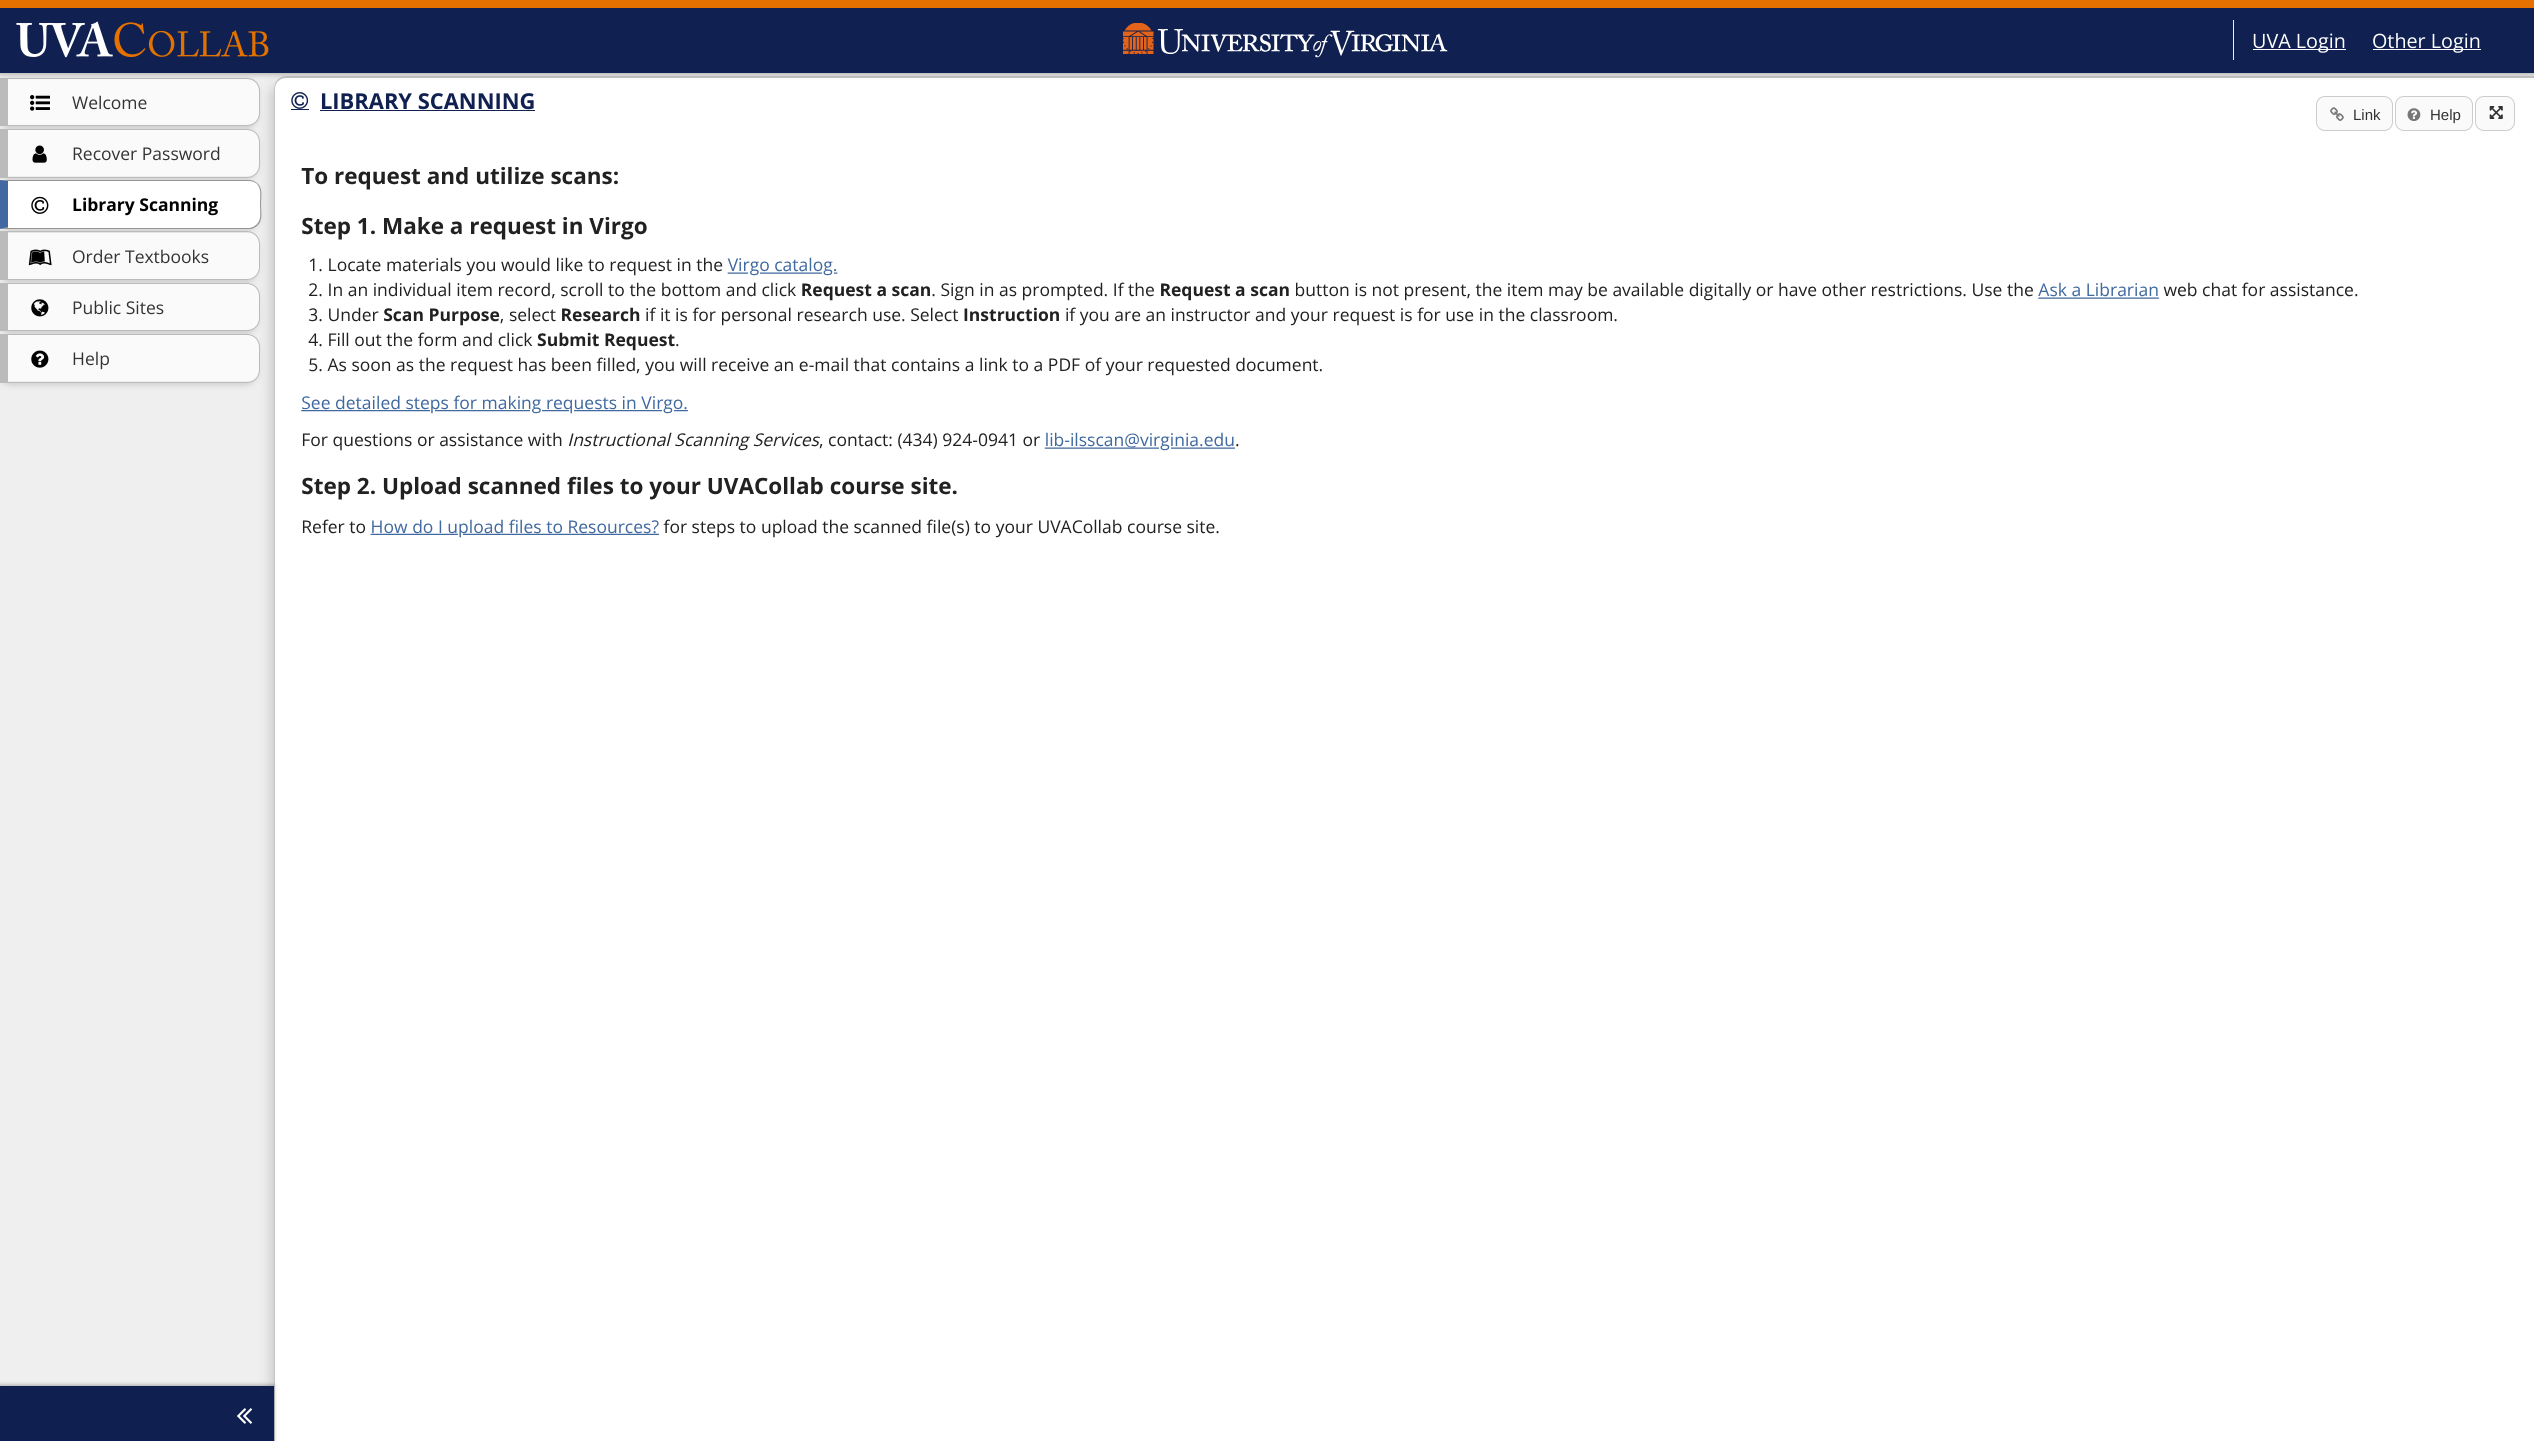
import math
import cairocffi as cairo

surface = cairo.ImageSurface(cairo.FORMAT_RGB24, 2534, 1441)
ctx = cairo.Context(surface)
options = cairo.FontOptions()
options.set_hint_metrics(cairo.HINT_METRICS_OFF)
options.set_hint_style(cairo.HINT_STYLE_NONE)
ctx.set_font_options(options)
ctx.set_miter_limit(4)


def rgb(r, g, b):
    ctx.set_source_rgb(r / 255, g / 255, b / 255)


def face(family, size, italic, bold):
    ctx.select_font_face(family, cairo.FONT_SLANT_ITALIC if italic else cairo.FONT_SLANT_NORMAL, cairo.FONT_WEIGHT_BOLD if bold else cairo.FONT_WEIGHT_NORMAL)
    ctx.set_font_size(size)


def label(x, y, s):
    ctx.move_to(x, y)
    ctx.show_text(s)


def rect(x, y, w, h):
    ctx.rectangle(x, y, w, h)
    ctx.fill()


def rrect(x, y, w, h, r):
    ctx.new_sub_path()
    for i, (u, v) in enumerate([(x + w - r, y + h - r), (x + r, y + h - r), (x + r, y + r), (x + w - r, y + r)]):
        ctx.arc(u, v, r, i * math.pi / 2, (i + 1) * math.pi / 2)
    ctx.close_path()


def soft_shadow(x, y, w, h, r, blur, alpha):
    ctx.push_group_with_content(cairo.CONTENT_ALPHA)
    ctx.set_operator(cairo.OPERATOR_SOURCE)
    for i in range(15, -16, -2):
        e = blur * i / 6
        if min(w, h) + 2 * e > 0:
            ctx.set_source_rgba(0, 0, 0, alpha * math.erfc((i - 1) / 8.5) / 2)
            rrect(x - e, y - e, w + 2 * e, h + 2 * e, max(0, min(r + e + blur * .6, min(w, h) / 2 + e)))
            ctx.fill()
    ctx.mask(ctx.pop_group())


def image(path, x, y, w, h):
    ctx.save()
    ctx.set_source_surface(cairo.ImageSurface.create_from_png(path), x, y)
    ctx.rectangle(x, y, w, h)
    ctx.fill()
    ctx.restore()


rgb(239, 239, 239)
ctx.paint()
rgb(204, 204, 204)
soft_shadow(-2, 80, 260, 49, 13, 3, 1)
rgb(199, 199, 199)
soft_shadow(271, 83, 2262, 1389, 13, 6, 1)
rgb(250, 250, 250)
ctx.new_path()
ctx.move_to(8, 79)
ctx.line_to(248, 79)
ctx.curve_to(254, 79, 259, 84, 259, 90)
ctx.line_to(259, 114)
ctx.curve_to(259, 120, 254, 125, 248, 125)
ctx.line_to(8, 125)
ctx.close_path()
ctx.fill()
ctx.new_path()
ctx.move_to(0.5, 78.5)
ctx.line_to(247, 78.5)
ctx.curve_to(254, 78.5, 259.5, 84, 259.5, 91)
ctx.line_to(259.5, 113)
ctx.curve_to(259.5, 120, 254, 125.5, 247, 125.5)
ctx.line_to(0.5, 125.5)
ctx.close_path()
rgb(187, 187, 187)
ctx.set_line_width(1)
ctx.stroke()
rect(1, 78, 7, 48)
rgb(255, 255, 255)
ctx.new_path()
ctx.move_to(287, 76)
ctx.line_to(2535, 76)
ctx.line_to(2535, 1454)
ctx.line_to(274, 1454)
ctx.line_to(274, 89)
ctx.curve_to(274, 82, 280, 76, 287, 76)
ctx.close_path()
ctx.fill()
rgb(199, 199, 199)
ctx.set_fill_rule(cairo.FILL_RULE_EVEN_ODD)
ctx.new_path()
ctx.move_to(286, 76)
ctx.line_to(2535, 76)
ctx.line_to(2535, 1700)
ctx.line_to(274, 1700)
ctx.line_to(274, 89)
ctx.curve_to(274, 82, 279, 76, 286, 76)
ctx.close_path()
ctx.move_to(286, 78)
ctx.line_to(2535, 78)
ctx.line_to(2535, 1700)
ctx.line_to(275, 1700)
ctx.line_to(275, 89)
ctx.curve_to(275, 83, 280, 78, 286, 78)
ctx.close_path()
ctx.fill()
rgb(0, 0, 0)
soft_shadow(0, 1, 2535, 73, 0, 3, 0.3)
rgb(16, 32, 80)
rect(0, 8, 2534, 65)
rgb(229, 113, 0)
rect(0, 0, 2534, 8)
image('image0.png', 16, 21, 253, 37)
image('image1.png', 1123, 23, 325, 35)
rgb(239, 239, 239)
rect(2233, 20, 1, 40)
rgb(255, 255, 255)
rect(2253, 49, 93, 1)
face('Open Sans', 19.75, 0, 0)
label(2252, 48, 'UVA Login')
rect(2373, 49, 108, 1)
label(2372, 48, 'Other Login')
image('image2.png', 30, 95, 20, 16)
face('Open Sans', 17.5, 0, 0)
rgb(51, 51, 51)
label(72, 109, 'Welcome')
ctx.save()
ctx.new_path()
ctx.move_to(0, 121)
ctx.line_to(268, 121)
ctx.line_to(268, 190)
ctx.line_to(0, 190)
ctx.close_path()
ctx.move_to(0, 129)
ctx.line_to(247, 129)
ctx.curve_to(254, 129, 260, 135, 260, 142)
ctx.line_to(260, 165)
ctx.curve_to(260, 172, 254, 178, 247, 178)
ctx.line_to(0, 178)
ctx.close_path()
ctx.clip()
rgb(204, 204, 204)
soft_shadow(-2, 131, 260, 49, 13, 3, 1)
ctx.restore()
rgb(250, 250, 250)
ctx.new_path()
ctx.move_to(8, 130)
ctx.line_to(248, 130)
ctx.curve_to(254, 130, 259, 135, 259, 141)
ctx.line_to(259, 165)
ctx.curve_to(259, 171, 254, 176, 248, 176)
ctx.line_to(8, 176)
ctx.close_path()
ctx.fill()
ctx.new_path()
ctx.move_to(0.5, 129.5)
ctx.line_to(247, 129.5)
ctx.curve_to(254, 129.5, 259.5, 135, 259.5, 142)
ctx.line_to(259.5, 165)
ctx.curve_to(259.5, 172, 254, 177.5, 247, 177.5)
ctx.line_to(0.5, 177.5)
ctx.close_path()
rgb(187, 187, 187)
ctx.stroke()
rect(1, 129, 7, 49)
image('image3.png', 32, 145, 15, 18)
rgb(51, 51, 51)
label(72, 160, 'Recover Password')
rgb(204, 204, 204)
soft_shadow(-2, 183, 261, 48, 13, 3, 1)
rgb(255, 255, 255)
ctx.new_path()
ctx.move_to(8, 181)
ctx.line_to(249, 181)
ctx.curve_to(255, 181, 260, 186, 260, 192)
ctx.line_to(260, 217)
ctx.curve_to(260, 223, 255, 228, 249, 228)
ctx.line_to(8, 228)
ctx.close_path()
ctx.fill()
rgb(148, 148, 148)
ctx.set_fill_rule(cairo.FILL_RULE_WINDING)
ctx.new_path()
ctx.move_to(0, 180)
ctx.line_to(8, 181)
ctx.line_to(249, 181)
ctx.curve_to(252, 181, 255, 182, 257, 184)
ctx.line_to(258, 184)
ctx.curve_to(255, 181, 252, 180, 249, 180)
ctx.close_path()
ctx.fill()
ctx.new_path()
ctx.move_to(258, 184)
ctx.curve_to(263, 189, 261, 197, 261, 204)
ctx.curve_to(261, 211, 263, 220, 258, 225)
ctx.line_to(257, 224)
ctx.curve_to(262, 219, 260, 211, 260, 204)
ctx.curve_to(260, 198, 262, 189, 257, 184)
ctx.close_path()
ctx.fill()
ctx.new_path()
ctx.move_to(251, 229)
ctx.line_to(0, 229)
ctx.line_to(8, 227)
ctx.line_to(8, 228)
ctx.line_to(249, 228)
ctx.curve_to(252, 228, 255, 226, 257, 224)
ctx.line_to(258, 225)
ctx.curve_to(256, 227, 254, 228, 251, 229)
ctx.close_path()
ctx.fill()
rgb(64, 105, 162)
ctx.new_path()
ctx.move_to(0, 229)
ctx.line_to(8, 227)
ctx.line_to(8, 181)
ctx.line_to(0, 180)
ctx.close_path()
ctx.fill()
image('image4.png', 31, 196, 18, 18)
face('Open Sans', 17.5, 0, 1)
rgb(0, 0, 0)
label(72, 211, 'Library Scanning')
ctx.save()
ctx.set_fill_rule(cairo.FILL_RULE_EVEN_ODD)
ctx.new_path()
ctx.move_to(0, 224)
ctx.line_to(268, 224)
ctx.line_to(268, 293)
ctx.line_to(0, 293)
ctx.close_path()
ctx.move_to(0, 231)
ctx.line_to(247, 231)
ctx.curve_to(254, 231, 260, 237, 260, 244)
ctx.line_to(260, 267)
ctx.curve_to(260, 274, 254, 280, 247, 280)
ctx.line_to(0, 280)
ctx.close_path()
ctx.clip()
rgb(204, 204, 204)
soft_shadow(-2, 234, 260, 49, 13, 3, 1)
ctx.restore()
rgb(250, 250, 250)
ctx.new_path()
ctx.move_to(8, 233)
ctx.line_to(248, 233)
ctx.curve_to(254, 233, 259, 238, 259, 244)
ctx.line_to(259, 268)
ctx.curve_to(259, 274, 254, 279, 248, 279)
ctx.line_to(8, 279)
ctx.close_path()
ctx.fill()
ctx.new_path()
ctx.move_to(0.5, 231.5)
ctx.line_to(247, 231.5)
ctx.curve_to(254, 231.5, 259.5, 237, 259.5, 244)
ctx.line_to(259.5, 267)
ctx.curve_to(259.5, 274, 254, 279.5, 247, 279.5)
ctx.line_to(0.5, 279.5)
ctx.close_path()
rgb(187, 187, 187)
ctx.stroke()
rect(1, 231, 7, 49)
image('image5.png', 28, 249, 24, 17)
face('Open Sans', 17.5, 0, 0)
rgb(51, 51, 51)
label(72, 263, 'Order Textbooks')
rgb(204, 204, 204)
soft_shadow(-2, 285, 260, 49, 13, 3, 1)
rgb(250, 250, 250)
ctx.new_path()
ctx.move_to(8, 284)
ctx.line_to(248, 284)
ctx.curve_to(254, 284, 259, 289, 259, 295)
ctx.line_to(259, 319)
ctx.curve_to(259, 325, 254, 330, 248, 330)
ctx.line_to(8, 330)
ctx.close_path()
ctx.fill()
ctx.new_path()
ctx.move_to(0.5, 283.5)
ctx.line_to(247, 283.5)
ctx.curve_to(254, 283.5, 259.5, 289, 259.5, 296)
ctx.line_to(259.5, 318)
ctx.curve_to(259.5, 325, 254, 330.5, 247, 330.5)
ctx.line_to(0.5, 330.5)
ctx.close_path()
rgb(187, 187, 187)
ctx.stroke()
rect(1, 283, 7, 48)
image('image6.png', 31, 299, 18, 18)
rgb(51, 51, 51)
label(72, 314, 'Public Sites')
ctx.save()
ctx.set_fill_rule(cairo.FILL_RULE_EVEN_ODD)
ctx.new_path()
ctx.move_to(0, 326)
ctx.line_to(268, 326)
ctx.line_to(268, 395)
ctx.line_to(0, 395)
ctx.close_path()
ctx.move_to(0, 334)
ctx.line_to(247, 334)
ctx.curve_to(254, 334, 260, 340, 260, 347)
ctx.line_to(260, 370)
ctx.curve_to(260, 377, 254, 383, 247, 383)
ctx.line_to(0, 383)
ctx.close_path()
ctx.clip()
rgb(204, 204, 204)
soft_shadow(-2, 336, 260, 49, 13, 3, 1)
ctx.restore()
rgb(250, 250, 250)
ctx.new_path()
ctx.move_to(8, 335)
ctx.line_to(248, 335)
ctx.curve_to(254, 335, 259, 340, 259, 346)
ctx.line_to(259, 370)
ctx.curve_to(259, 376, 254, 381, 248, 381)
ctx.line_to(8, 381)
ctx.close_path()
ctx.fill()
ctx.new_path()
ctx.move_to(0.5, 334.5)
ctx.line_to(247, 334.5)
ctx.curve_to(254, 334.5, 259.5, 340, 259.5, 347)
ctx.line_to(259.5, 370)
ctx.curve_to(259.5, 377, 254, 382.5, 247, 382.5)
ctx.line_to(0.5, 382.5)
ctx.close_path()
rgb(187, 187, 187)
ctx.stroke()
rect(1, 334, 7, 49)
image('image7.png', 31, 350, 18, 18)
rgb(51, 51, 51)
label(72, 365, 'Help')
rgb(0, 0, 0)
soft_shadow(0, 1385, 274, 56, 0, 2, 0.3)
rgb(15, 32, 80)
rect(0, 1386, 274, 55)
image('image8.png', 237, 1408, 15, 16)
image('image9.png', 291, 92, 18, 17)
rgb(16, 32, 80)
rect(291, 109, 18, 1)
face('Open Sans', 21.9, 0, 1)
label(320, 109, 'LIBRARY SCANNING')
rect(320, 110, 215, 1)
rgb(250, 250, 250)
rrect(2316.5, 96.5, 76, 34, 8.5)
ctx.fill_preserve()
rgb(204, 204, 204)
ctx.stroke()
image('image10.png', 2330, 107, 14, 14)
face('Liberation Sans', 15, 0, 0)
rgb(51, 51, 51)
label(2353, 120, 'Link')
rgb(250, 250, 250)
rrect(2395.5, 96.5, 77, 34, 8.5)
ctx.fill_preserve()
rgb(204, 204, 204)
ctx.stroke()
image('image11.png', 2407, 108, 14, 13)
rgb(51, 51, 51)
label(2430, 120, 'Help')
rgb(250, 250, 250)
rrect(2475.5, 96.5, 39, 34, 8.5)
ctx.fill_preserve()
rgb(204, 204, 204)
ctx.stroke()
image('image12.png', 2489, 106, 14, 13)
image('image13.png', 301, 166, 2057, 372)
surface.write_to_png('render.png')
